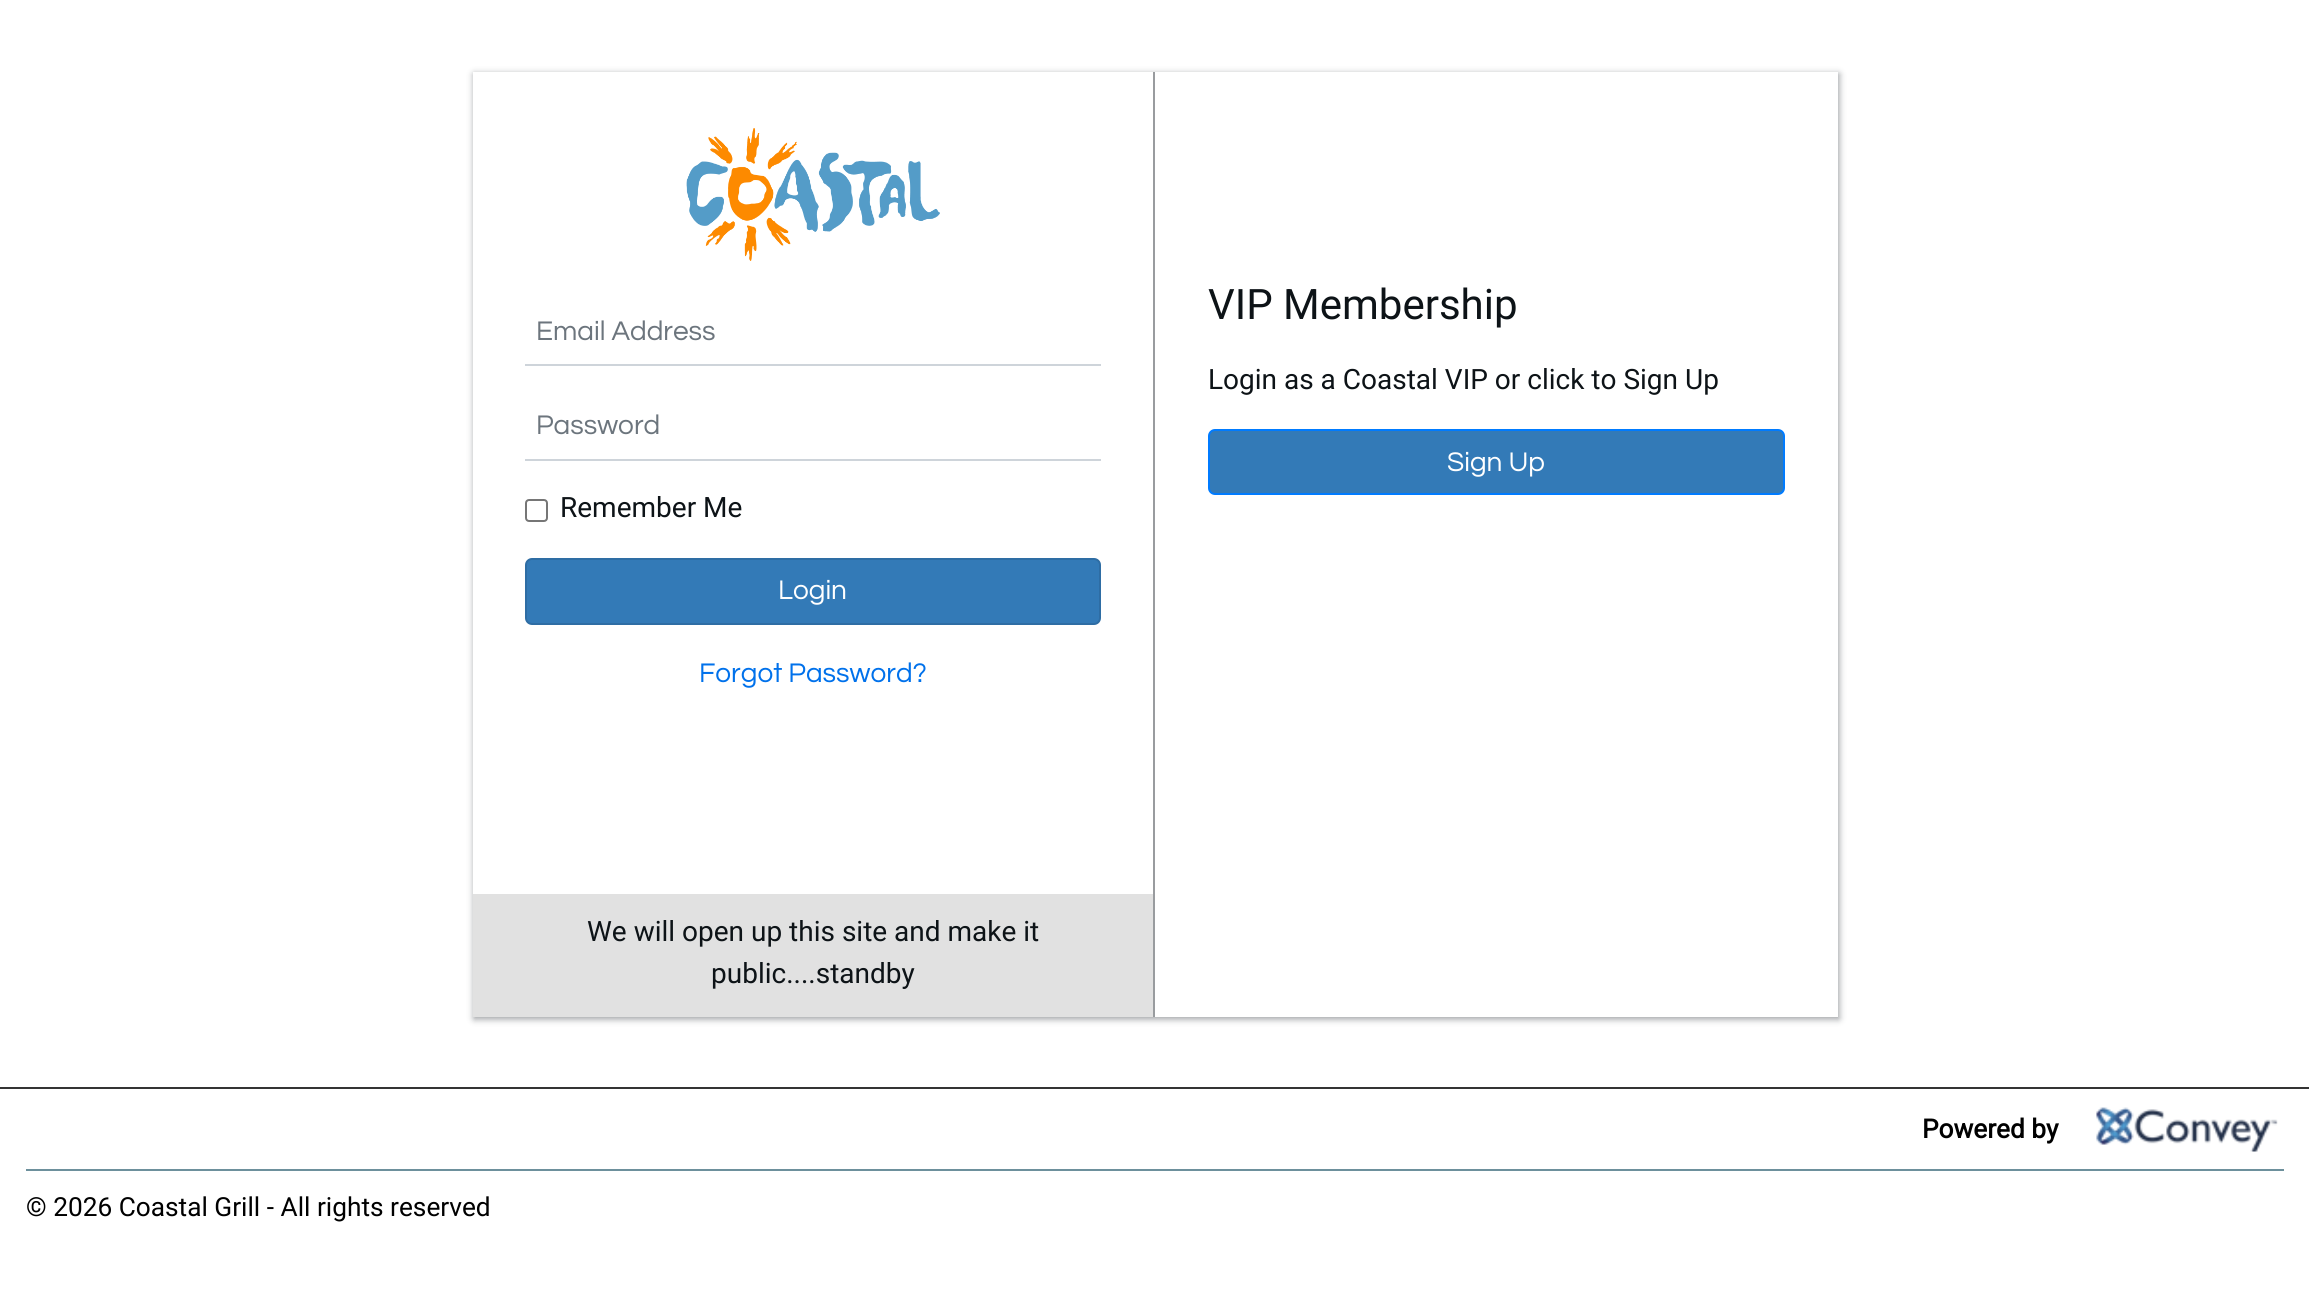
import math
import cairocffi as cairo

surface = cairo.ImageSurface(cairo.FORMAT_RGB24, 2309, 1293)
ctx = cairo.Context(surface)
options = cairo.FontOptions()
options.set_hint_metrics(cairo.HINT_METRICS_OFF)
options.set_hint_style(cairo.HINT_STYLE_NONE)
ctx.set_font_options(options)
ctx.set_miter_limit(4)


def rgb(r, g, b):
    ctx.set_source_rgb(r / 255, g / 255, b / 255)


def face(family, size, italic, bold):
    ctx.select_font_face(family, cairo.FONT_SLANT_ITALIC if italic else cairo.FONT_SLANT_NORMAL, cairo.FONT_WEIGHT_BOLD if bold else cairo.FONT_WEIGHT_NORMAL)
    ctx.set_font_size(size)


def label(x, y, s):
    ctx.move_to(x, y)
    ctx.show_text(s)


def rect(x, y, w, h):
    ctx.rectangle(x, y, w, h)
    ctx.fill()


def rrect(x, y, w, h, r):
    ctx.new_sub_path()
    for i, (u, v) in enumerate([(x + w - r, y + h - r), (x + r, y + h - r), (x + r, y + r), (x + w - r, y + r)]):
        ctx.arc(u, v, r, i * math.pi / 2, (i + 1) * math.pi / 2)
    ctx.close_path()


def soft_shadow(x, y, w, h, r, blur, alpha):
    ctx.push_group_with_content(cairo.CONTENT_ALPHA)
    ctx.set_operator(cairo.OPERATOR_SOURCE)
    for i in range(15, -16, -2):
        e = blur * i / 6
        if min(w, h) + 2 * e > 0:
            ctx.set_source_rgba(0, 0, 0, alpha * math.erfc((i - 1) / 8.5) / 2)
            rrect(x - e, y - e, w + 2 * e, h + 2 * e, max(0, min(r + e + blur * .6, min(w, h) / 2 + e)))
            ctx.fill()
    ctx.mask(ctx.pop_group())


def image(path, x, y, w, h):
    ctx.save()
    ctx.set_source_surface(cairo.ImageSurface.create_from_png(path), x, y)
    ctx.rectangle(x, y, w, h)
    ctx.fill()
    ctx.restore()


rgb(255, 255, 255)
ctx.paint()
rgb(153, 156, 159)
soft_shadow(474, 74, 1365, 945, 0, 3.5, 1)
rgb(255, 255, 255)
rect(473, 72, 1365, 945)
rgb(153, 156, 159)
rect(1153, 72, 2, 945)
image('image0.png', 686, 128, 254, 133)
rgb(206, 212, 218)
rect(525, 364, 576, 2)
face('Questrial', 28, 0, 0)
rgb(108, 117, 125)
label(536, 340, 'Email Address')
rgb(206, 212, 218)
rect(525, 459, 576, 2)
rgb(108, 117, 125)
label(536, 434, 'Password')
rrect(526, 500, 21, 21, 3)
rgb(118, 118, 118)
ctx.stroke()
face('Roboto', 28, 0, 0)
rgb(13, 19, 23)
label(560, 517, 'Remember Me')
rgb(51, 122, 183)
rrect(526, 559, 574, 65, 6)
ctx.fill_preserve()
rgb(46, 109, 164)
ctx.stroke()
face('Questrial', 28, 0, 0)
rgb(255, 255, 255)
label(778, 599, 'Login')
rgb(0, 113, 235)
label(699, 682, 'Forgot Password?')
rgb(225, 225, 225)
rect(473, 894, 680, 123)
face('Roboto', 28, 0, 0)
rgb(13, 19, 23)
label(587, 941, 'We will open up this site and make it')
label(711, 983, 'public....standby')
face('Roboto', 42, 0, 0)
label(1208, 319, 'VIP Membership')
face('Roboto', 28, 0, 0)
label(1208, 389, 'Login as a Coastal VIP or click to Sign Up')
rgb(51, 122, 183)
rrect(1209, 430, 575, 64, 6)
ctx.fill_preserve()
rgb(0, 123, 255)
ctx.stroke()
face('Questrial', 28, 0, 0)
rgb(255, 255, 255)
label(1447, 471, 'Sign Up')
rgb(52, 52, 52)
rect(0, 1087, 2309, 2)
rgb(109, 144, 156)
rect(26, 1169, 2258, 2)
face('Roboto', 26.25, 0, 1)
rgb(0, 0, 0)
label(1922, 1138, 'Powered by')
image('image1.png', 2096, 1107, 182, 45)
face('Roboto', 26.25, 0, 0)
label(26, 1216, '© 2026 Coastal Grill - All rights reserved')
surface.write_to_png('render.png')
